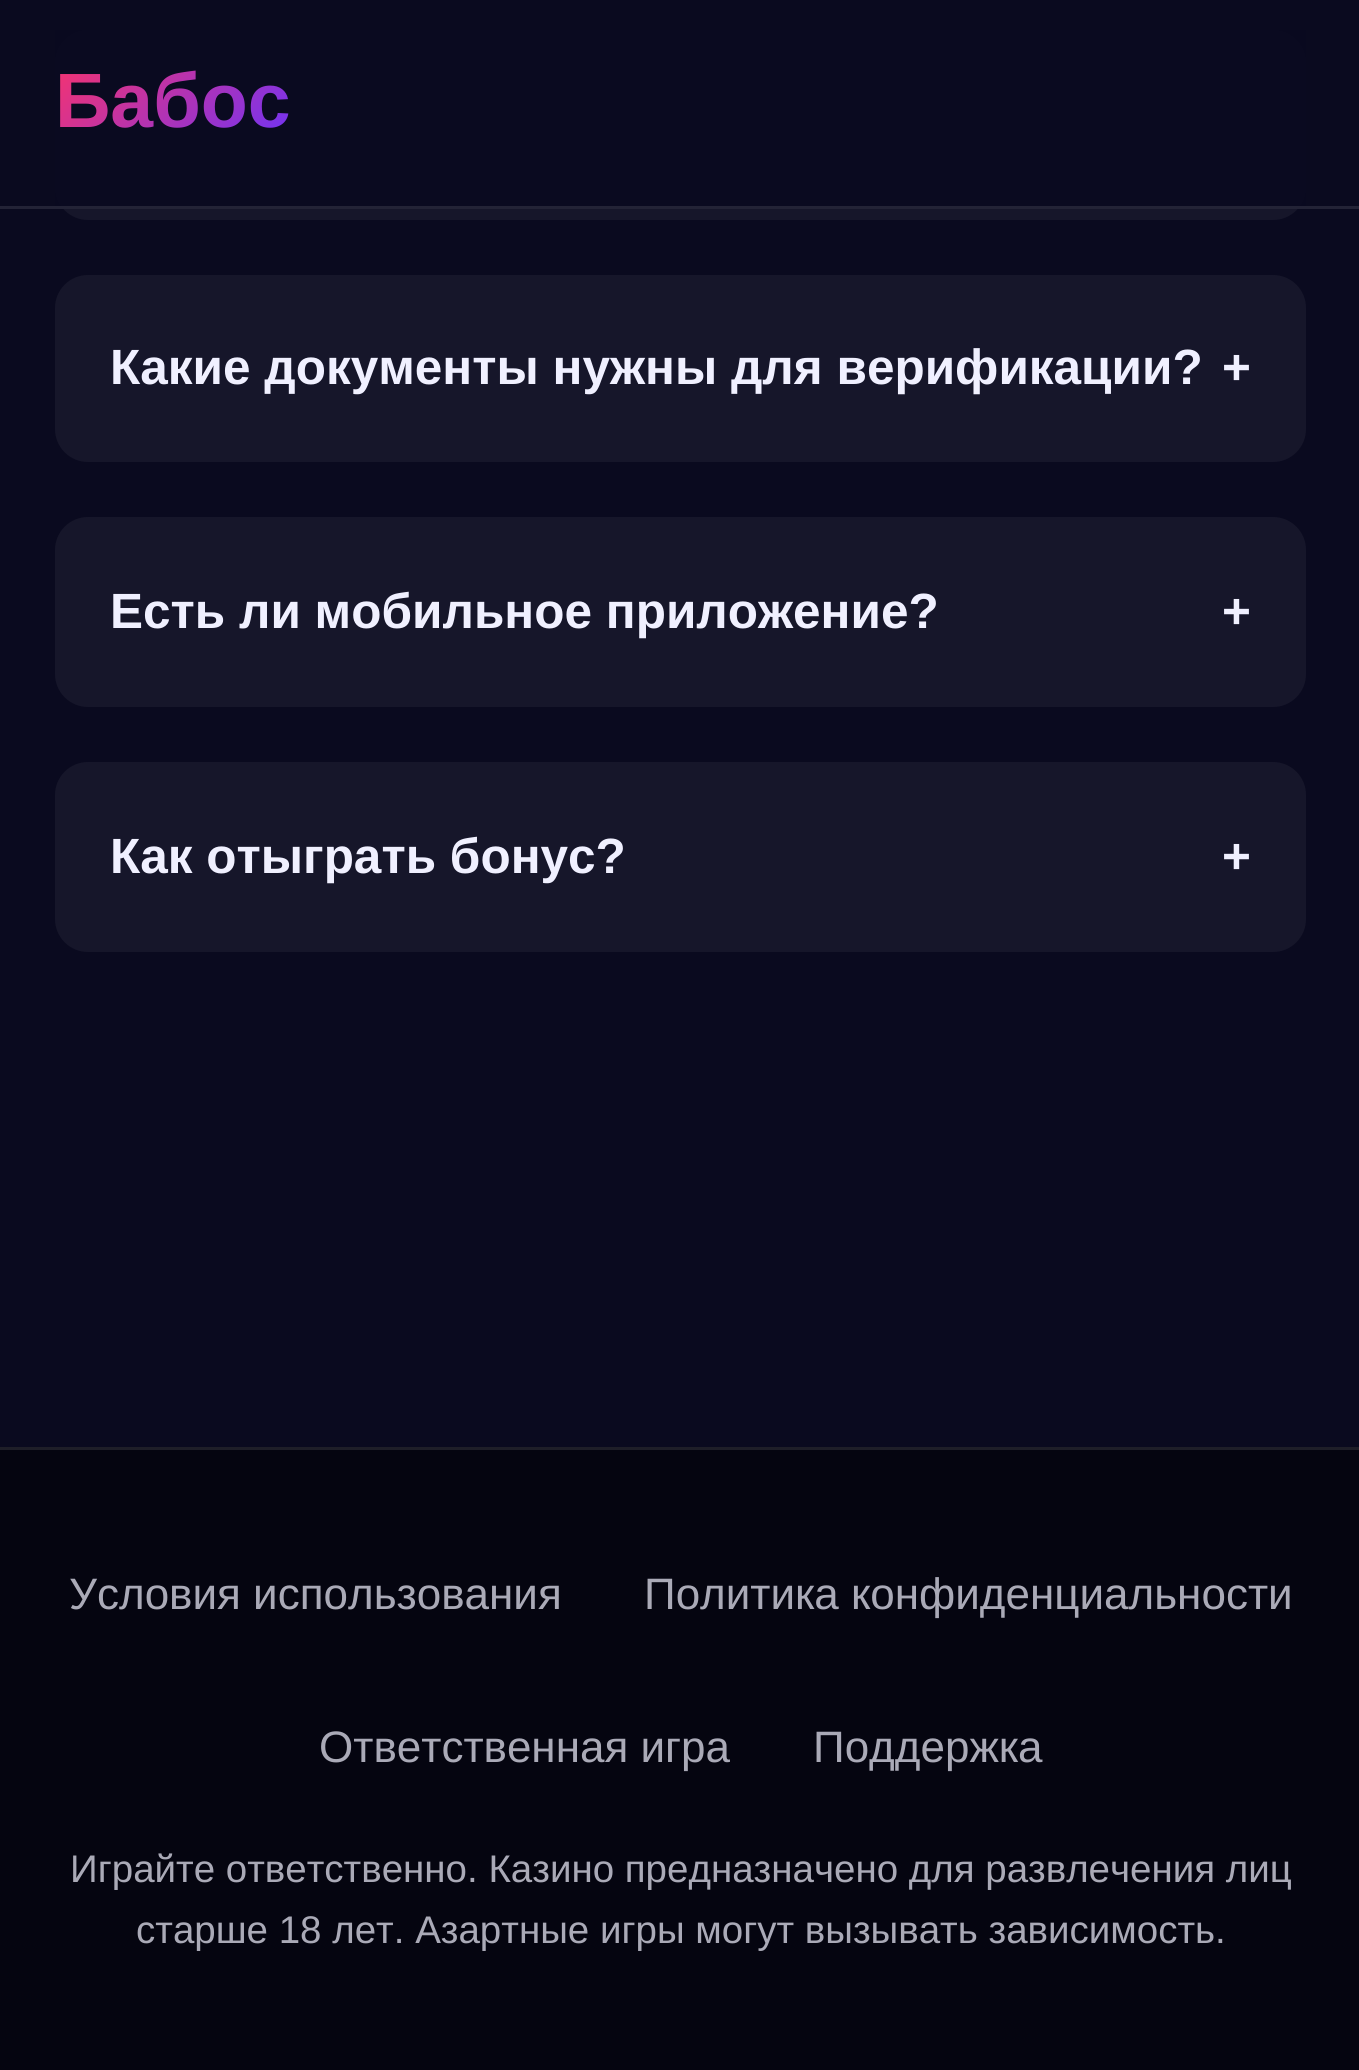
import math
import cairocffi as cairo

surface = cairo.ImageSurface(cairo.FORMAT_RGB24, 1359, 2070)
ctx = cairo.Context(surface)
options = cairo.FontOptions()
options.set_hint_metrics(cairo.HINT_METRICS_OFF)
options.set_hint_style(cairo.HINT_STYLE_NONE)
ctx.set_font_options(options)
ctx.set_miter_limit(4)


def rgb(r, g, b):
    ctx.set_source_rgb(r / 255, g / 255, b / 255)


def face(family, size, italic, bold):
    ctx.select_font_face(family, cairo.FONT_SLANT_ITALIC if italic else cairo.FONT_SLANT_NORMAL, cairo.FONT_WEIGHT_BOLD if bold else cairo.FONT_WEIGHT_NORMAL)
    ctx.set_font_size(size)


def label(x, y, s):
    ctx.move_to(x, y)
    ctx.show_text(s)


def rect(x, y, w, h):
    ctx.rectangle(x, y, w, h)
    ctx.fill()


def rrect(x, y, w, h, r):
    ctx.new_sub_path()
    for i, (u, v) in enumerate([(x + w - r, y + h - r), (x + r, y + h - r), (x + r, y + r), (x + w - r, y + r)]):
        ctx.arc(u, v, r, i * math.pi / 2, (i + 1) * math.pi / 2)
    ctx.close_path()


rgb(10, 10, 31)
ctx.paint()
rgb(22, 22, 42)
rrect(55, 30, 1251, 190, 33)
ctx.fill()
ctx.set_source_rgba(0.039, 0.039, 0.122, 0.9)
rect(55, 30, 1251, 176)
rgb(35, 35, 54)
rect(0, 206, 1359, 3)
face('Liberation Sans', 77, 0, 1)
gradient = cairo.LinearGradient(83, 13, 262, 193)
gradient.add_color_stop_rgba(0, 1, 0.2, 0.4, 1)
gradient.add_color_stop_rgba(1, 0.4, 0.2, 1, 1)
ctx.set_source(gradient)
label(55, 127, 'Бабос')
rgb(22, 22, 42)
rrect(55, 275, 1251, 187, 33)
ctx.fill()
face('Liberation Sans', 49.5, 0, 1)
rgb(240, 240, 255)
label(110, 384, 'Какие документы нужны для верификации?')
label(1222, 384, '+')
rgb(22, 22, 42)
rrect(55, 517, 1251, 190, 33)
ctx.fill()
rgb(240, 240, 255)
label(110, 628, 'Есть ли мобильное приложение?')
label(1222, 628, '+')
rgb(22, 22, 42)
rrect(55, 762, 1251, 190, 33)
ctx.fill()
rgb(240, 240, 255)
label(110, 873, 'Как отыграть бонус?')
label(1222, 873, '+')
rgb(5, 5, 16)
rect(0, 1450, 1359, 620)
rgb(30, 30, 40)
rect(0, 1447, 1359, 3)
face('Liberation Sans', 44, 0, 0)
rgb(170, 170, 183)
label(69, 1609, 'Условия использования')
label(644, 1609, 'Политика конфиденциальности')
label(319, 1762, 'Ответственная игра')
label(813, 1762, 'Поддержка')
face('Liberation Sans', 38.5, 0, 0)
label(70, 1882, 'Играйте ответственно. Казино предназначено для развлечения лиц')
label(136, 1943, 'старше 18 лет. Азартные игры могут вызывать зависимость.')
surface.write_to_png('render.png')
